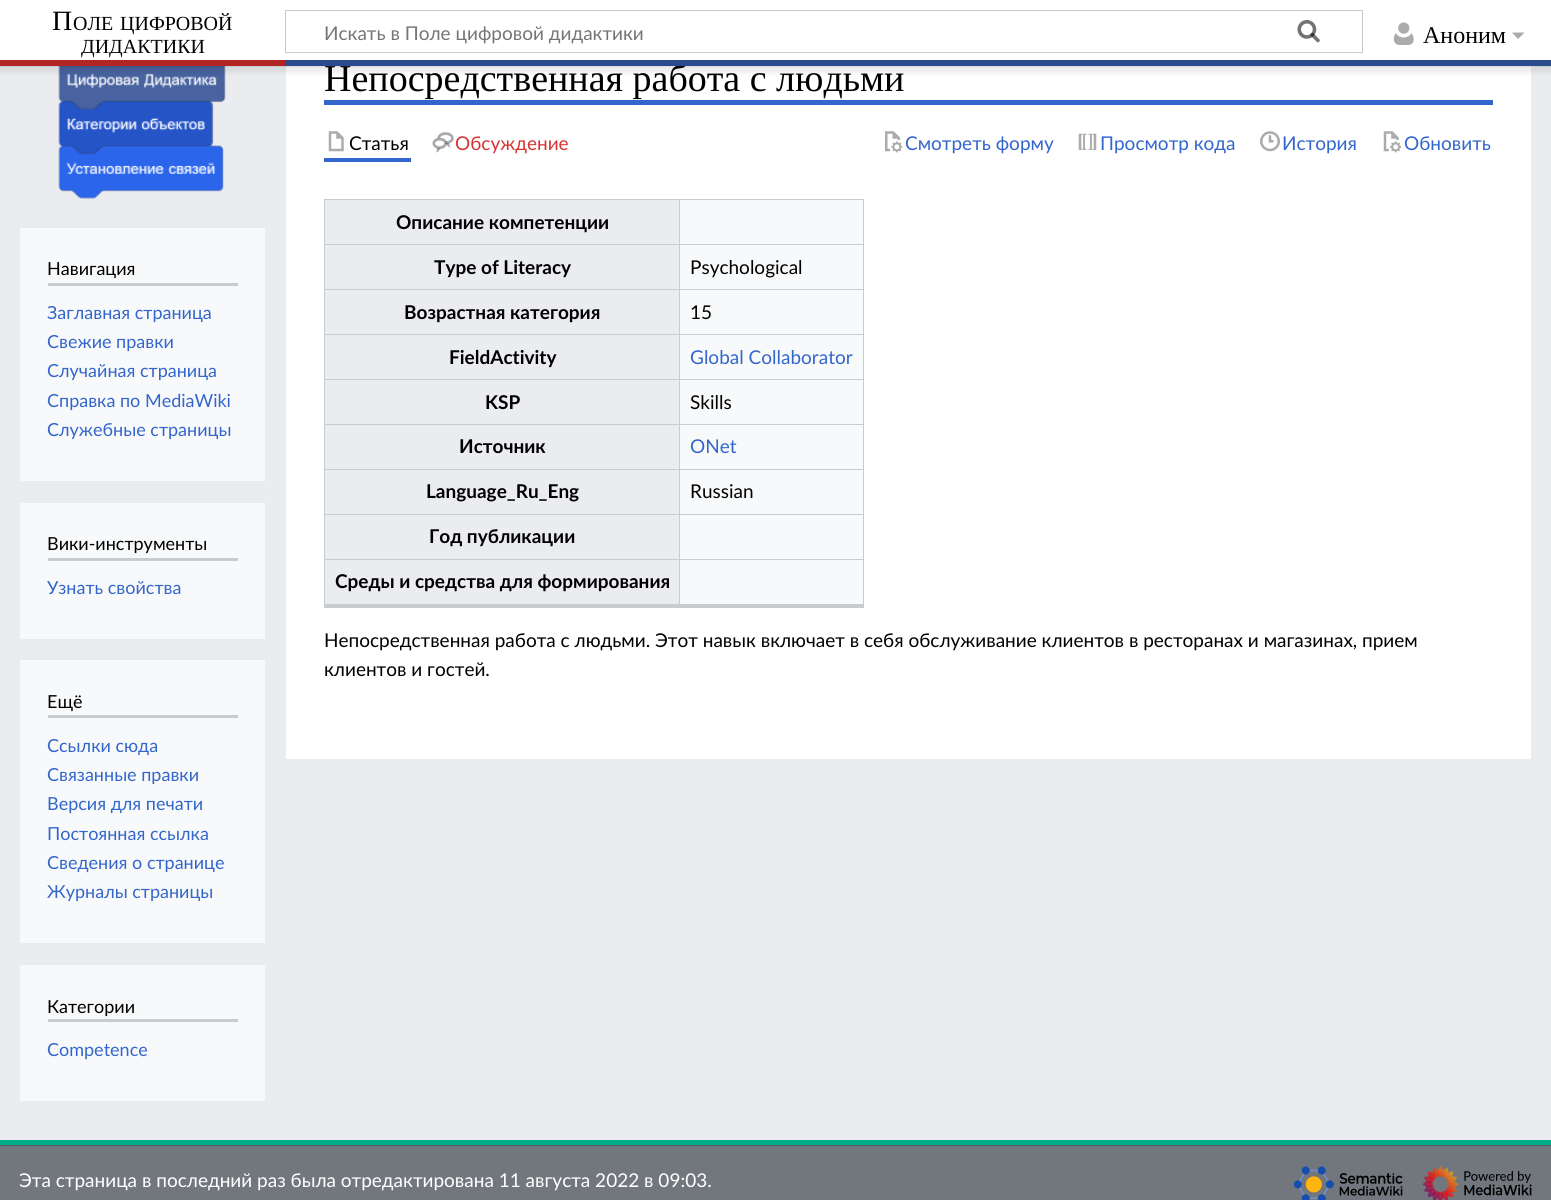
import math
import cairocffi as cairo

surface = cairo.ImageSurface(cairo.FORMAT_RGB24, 1551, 1200)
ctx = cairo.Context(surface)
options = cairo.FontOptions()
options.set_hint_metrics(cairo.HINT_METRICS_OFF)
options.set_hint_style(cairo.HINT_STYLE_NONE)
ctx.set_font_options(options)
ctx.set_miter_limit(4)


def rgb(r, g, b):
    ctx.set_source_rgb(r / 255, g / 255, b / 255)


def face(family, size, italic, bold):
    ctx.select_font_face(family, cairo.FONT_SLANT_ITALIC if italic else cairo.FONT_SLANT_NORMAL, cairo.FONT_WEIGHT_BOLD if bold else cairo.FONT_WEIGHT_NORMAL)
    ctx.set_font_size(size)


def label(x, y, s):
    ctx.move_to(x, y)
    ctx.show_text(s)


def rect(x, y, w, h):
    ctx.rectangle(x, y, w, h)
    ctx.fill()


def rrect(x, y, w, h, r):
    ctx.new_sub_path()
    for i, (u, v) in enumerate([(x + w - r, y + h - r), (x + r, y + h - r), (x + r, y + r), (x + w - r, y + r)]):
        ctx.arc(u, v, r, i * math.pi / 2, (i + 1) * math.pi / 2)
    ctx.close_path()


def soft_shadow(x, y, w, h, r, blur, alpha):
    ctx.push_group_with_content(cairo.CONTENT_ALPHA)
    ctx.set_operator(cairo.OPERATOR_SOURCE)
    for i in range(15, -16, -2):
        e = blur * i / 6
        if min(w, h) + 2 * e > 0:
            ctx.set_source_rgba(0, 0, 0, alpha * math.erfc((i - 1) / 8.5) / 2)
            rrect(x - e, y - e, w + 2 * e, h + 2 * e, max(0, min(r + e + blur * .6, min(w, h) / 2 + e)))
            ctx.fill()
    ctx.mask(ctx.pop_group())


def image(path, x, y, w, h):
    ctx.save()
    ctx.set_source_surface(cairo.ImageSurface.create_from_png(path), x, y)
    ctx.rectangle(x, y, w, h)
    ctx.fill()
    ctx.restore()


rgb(114, 119, 125)
ctx.paint()
rgb(234, 236, 240)
rect(0, 66, 1551, 1074)
image('image3.png', 58, 66, 168, 133)
rgb(255, 255, 255)
rect(286, 66, 1245, 693)
rgb(0, 0, 0)
soft_shadow(0, 60, 1551, 6, 0, 1, 0.2)
soft_shadow(-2, 61, 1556, 12, 0, 2, 0.07)
rgb(255, 255, 255)
rect(0, 0, 1551, 60)
face('Liberation Serif', 28, 0, 0)
rgb(0, 0, 0)
label(52, 30, 'П')
face('Liberation Serif', 20, 0, 0)
label(73, 30, 'ОЛЕ')
label(120, 30, 'ЦИФРОВОЙ')
label(81, 53, 'ДИДАКТИКИ')
ctx.rectangle(285.5, 10.5, 1077, 42)
rgb(200, 204, 209)
ctx.set_line_width(1)
ctx.stroke()
image('image0.png', 1297, 20, 23, 23)
face('Lato', 19, 0, 0)
rgb(117, 117, 117)
label(324, 40, 'Искать в Поле цифровой дидактики')
image('image1.png', 1297, 20, 23, 23)
image('image2.png', 1393, 22, 21, 23)
face('Liberation Serif', 24, 0, 0)
rgb(0, 0, 0)
label(1423, 43, 'Аноним')
rgb(171, 171, 171)
ctx.new_path()
ctx.move_to(1524.5, 32.5)
ctx.line_to(1518, 39)
ctx.line_to(1512, 32.5)
ctx.close_path()
ctx.fill()
rgb(179, 36, 36)
rect(0, 60, 285, 6)
face('Liberation Serif', 38, 0, 0)
rgb(0, 0, 0)
label(324, 91, 'Непосредственная работа с людьми')
rgb(42, 75, 141)
rect(285, 60, 1266, 6)
rgb(0, 175, 137)
rect(0, 1140, 1551, 5)
rgb(248, 249, 250)
rect(20, 228, 245, 253)
rgb(200, 204, 209)
rect(48, 283, 190, 3)
face('Lato', 18, 0, 0)
rgb(0, 0, 0)
label(47, 275, 'Навигация')
rgb(51, 102, 204)
label(47, 319, 'Заглавная страница')
label(47, 348, 'Свежие правки')
label(47, 377, 'Случайная страница')
label(47, 407, 'Справка по MediaWiki')
label(47, 436, 'Служебные страницы')
rgb(248, 249, 250)
rect(20, 503, 245, 136)
rgb(200, 204, 209)
rect(48, 558, 190, 3)
rgb(0, 0, 0)
label(47, 550, 'Вики-инструменты')
rgb(51, 102, 204)
label(47, 594, 'Узнать свойства')
rect(324, 100, 1169, 5)
rect(324, 158, 87, 4)
image('image4.png', 328, 131, 16, 21)
face('Lato', 19, 0, 0)
rgb(0, 0, 0)
label(349, 150, 'Статья')
image('image5.png', 432, 132, 22, 21)
rgb(215, 51, 51)
label(455, 150, 'Обсуждение')
image('image6.png', 885, 131, 18, 22)
rgb(51, 102, 204)
label(905, 150, 'Смотреть форму')
image('image7.png', 1078, 133, 19, 17)
label(1100, 150, 'Просмотр кода')
image('image8.png', 1260, 131, 20, 21)
label(1282, 150, 'История')
image('image9.png', 1383, 131, 19, 22)
label(1404, 150, 'Обновить')
rgb(248, 249, 250)
rect(680, 200, 183, 404)
rgb(200, 204, 209)
rect(324, 199, 540, 1)
rect(863, 199, 1, 409)
rect(324, 199, 1, 409)
rect(679, 559, 185, 1)
rect(679, 559, 1, 47)
rect(324, 604, 540, 4)
rgb(234, 236, 240)
rect(325, 200, 354, 44)
face('Lato', 19, 0, 1)
rgb(0, 0, 0)
label(396, 229, 'Описание компетенции')
rgb(200, 204, 209)
rect(679, 244, 185, 1)
rect(679, 289, 185, 1)
rect(679, 334, 185, 1)
rect(679, 379, 185, 1)
rect(679, 424, 185, 1)
rect(679, 469, 185, 1)
rect(679, 514, 185, 1)
rect(324, 559, 356, 1)
rect(679, 514, 1, 46)
rect(324, 514, 356, 1)
rect(679, 469, 1, 46)
rect(324, 469, 356, 1)
rect(679, 424, 1, 46)
rect(324, 424, 356, 1)
rect(679, 379, 1, 46)
rect(324, 379, 356, 1)
rect(679, 334, 1, 46)
rect(324, 334, 356, 1)
rect(679, 289, 1, 46)
rect(324, 289, 356, 1)
rect(679, 244, 1, 46)
rect(324, 244, 356, 1)
rect(679, 199, 1, 46)
rgb(234, 236, 240)
rect(325, 245, 354, 44)
rgb(0, 0, 0)
label(434, 274, 'Type of Literacy')
face('Lato', 19, 0, 0)
label(690, 274, 'Psychological')
rgb(234, 236, 240)
rect(325, 290, 354, 44)
face('Lato', 19, 0, 1)
rgb(0, 0, 0)
label(404, 319, 'Возрастная категория')
face('Lato', 19, 0, 0)
label(690, 319, '15')
rgb(234, 236, 240)
rect(325, 335, 354, 44)
face('Lato', 19, 0, 1)
rgb(0, 0, 0)
label(449, 364, 'FieldActivity')
face('Lato', 19, 0, 0)
rgb(51, 102, 204)
label(690, 364, 'Global Collaborator')
rgb(234, 236, 240)
rect(325, 380, 354, 44)
face('Lato', 19, 0, 1)
rgb(0, 0, 0)
label(485, 409, 'KSP')
face('Lato', 19, 0, 0)
label(690, 409, 'Skills')
rgb(234, 236, 240)
rect(325, 425, 354, 44)
face('Lato', 19, 0, 1)
rgb(0, 0, 0)
label(459, 453, 'Источник')
face('Lato', 19, 0, 0)
rgb(51, 102, 204)
label(690, 453, 'ONet')
rgb(234, 236, 240)
rect(325, 470, 354, 44)
face('Lato', 19, 0, 1)
rgb(0, 0, 0)
label(426, 498, 'Language_Ru_Eng')
face('Lato', 19, 0, 0)
label(690, 498, 'Russian')
rgb(234, 236, 240)
rect(325, 515, 354, 44)
face('Lato', 19, 0, 1)
rgb(0, 0, 0)
label(429, 543, 'Год публикации')
rgb(234, 236, 240)
rect(325, 560, 354, 44)
rgb(0, 0, 0)
label(335, 588, 'Среды и средства для формирования')
face('Lato', 19, 0, 0)
label(324, 647, 'Непосредственная работа с людьми. Этот навык включает в себя обслуживание клиентов в ресторанах и магазинах, прием')
label(324, 676, 'клиентов и гостей.')
rgb(248, 249, 250)
rect(20, 660, 245, 283)
rgb(200, 204, 209)
rect(48, 715, 190, 3)
face('Lato', 18, 0, 0)
rgb(0, 0, 0)
label(47, 708, 'Ещё')
rgb(51, 102, 204)
label(47, 752, 'Ссылки сюда')
label(47, 781, 'Связанные правки')
label(47, 810, 'Версия для печати')
label(47, 840, 'Постоянная ссылка')
label(47, 869, 'Сведения о странице')
label(47, 898, 'Журналы страницы')
rgb(248, 249, 250)
rect(20, 965, 245, 136)
rgb(200, 204, 209)
rect(48, 1019, 190, 3)
rgb(0, 0, 0)
label(47, 1013, 'Категории')
rgb(51, 102, 204)
label(47, 1056, 'Competence')
rgb(84, 89, 93)
rect(0, 1145, 1551, 1)
face('Lato', 19, 0, 0)
rgb(255, 255, 255)
label(19, 1187, 'Эта страница в последний раз была отредактирована 11 августа 2022 в 09:03.')
image('image10.png', 1294, 1166, 109, 34)
image('image11.png', 1423, 1166, 109, 34)
surface.write_to_png('render.png')
